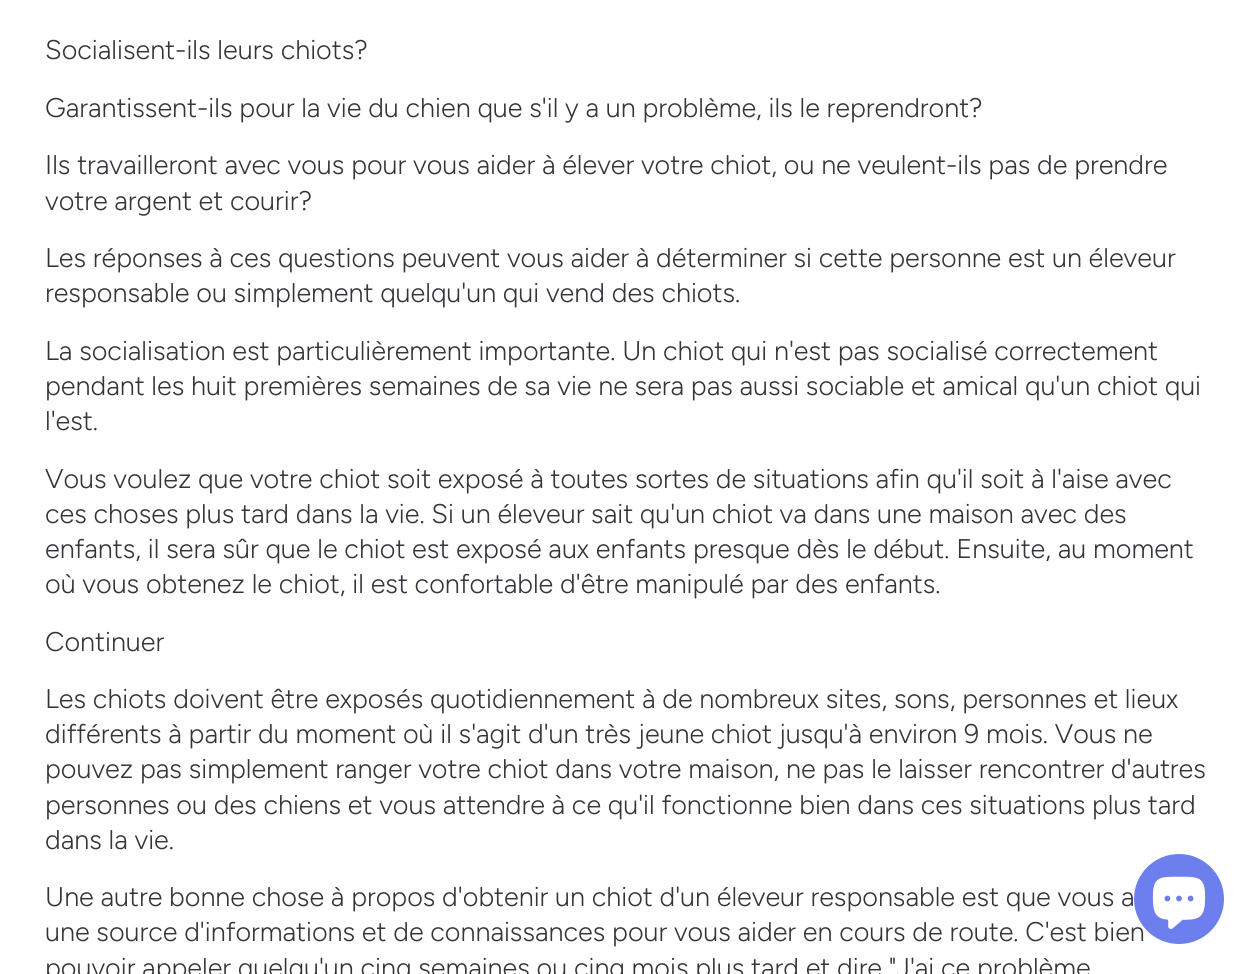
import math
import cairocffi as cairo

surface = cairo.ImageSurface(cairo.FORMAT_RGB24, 1257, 974)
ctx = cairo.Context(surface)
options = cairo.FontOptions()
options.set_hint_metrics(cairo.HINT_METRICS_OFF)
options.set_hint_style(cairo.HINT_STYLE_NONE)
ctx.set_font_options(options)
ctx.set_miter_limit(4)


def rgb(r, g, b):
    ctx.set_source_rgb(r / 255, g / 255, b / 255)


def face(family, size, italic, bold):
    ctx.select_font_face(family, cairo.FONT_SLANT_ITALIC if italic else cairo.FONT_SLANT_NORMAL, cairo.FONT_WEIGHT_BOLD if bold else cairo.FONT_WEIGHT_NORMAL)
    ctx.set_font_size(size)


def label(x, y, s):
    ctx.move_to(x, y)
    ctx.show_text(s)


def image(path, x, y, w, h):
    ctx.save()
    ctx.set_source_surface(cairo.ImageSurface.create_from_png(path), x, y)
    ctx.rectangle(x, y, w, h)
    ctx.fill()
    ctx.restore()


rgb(255, 255, 255)
ctx.paint()
face('Figtree Light', 27, 0, 0)
rgb(52, 52, 58)
label(45, 59, 'Socialisent-ils leurs chiots?')
label(45, 117, 'Garantissent-ils pour la vie du chien que s\'il y a un problème, ils le reprendront?')
label(45, 174, 'Ils travailleront avec vous pour vous aider à élever votre chiot, ou ne veulent-ils pas de prendre')
label(45, 210, 'votre argent et courir?')
label(45, 267, 'Les réponses à ces questions peuvent vous aider à déterminer si cette personne est un éleveur')
label(45, 302, 'responsable ou simplement quelqu\'un qui vend des chiots.')
label(45, 360, 'La socialisation est particulièrement importante. Un chiot qui n\'est pas socialisé correctement')
label(45, 395, 'pendant les huit premières semaines de sa vie ne sera pas aussi sociable et amical qu\'un chiot qui')
label(45, 430, 'l\'est.')
label(45, 488, 'Vous voulez que votre chiot soit exposé à toutes sortes de situations afin qu\'il soit à l\'aise avec')
label(45, 523, 'ces choses plus tard dans la vie. Si un éleveur sait qu\'un chiot va dans une maison avec des')
label(45, 558, 'enfants, il sera sûr que le chiot est exposé aux enfants presque dès le début. Ensuite, au moment')
label(45, 593, 'où vous obtenez le chiot, il est confortable d\'être manipulé par des enfants.')
label(45, 651, 'Continuer')
label(45, 708, 'Les chiots doivent être exposés quotidiennement à de nombreux sites, sons, personnes et lieux')
label(45, 743, 'différents à partir du moment où il s\'agit d\'un très jeune chiot jusqu\'à environ 9 mois. Vous ne')
label(45, 778, 'pouvez pas simplement ranger votre chiot dans votre maison, ne pas le laisser rencontrer d\'autres')
label(45, 814, 'personnes ou des chiens et vous attendre à ce qu\'il fonctionne bien dans ces situations plus tard')
label(45, 849, 'dans la vie.')
label(45, 906, 'Une autre bonne chose à propos d\'obtenir un chiot d\'un éleveur responsable est que vous a')
label(45, 941, 'une source d\'informations et de connaissances pour vous aider en cours de route. C\'est bien')
label(45, 977, 'pouvoir appeler quelqu\'un cinq semaines ou cinq mois plus tard et dire "J\'ai ce problème')
rgb(109, 127, 237)
ctx.new_path()
ctx.arc(1179, 899, 45, 0, 2 * math.pi)
ctx.fill()
image('image0.png', 1152, 876, 54, 53)
surface.write_to_png('render.png')
